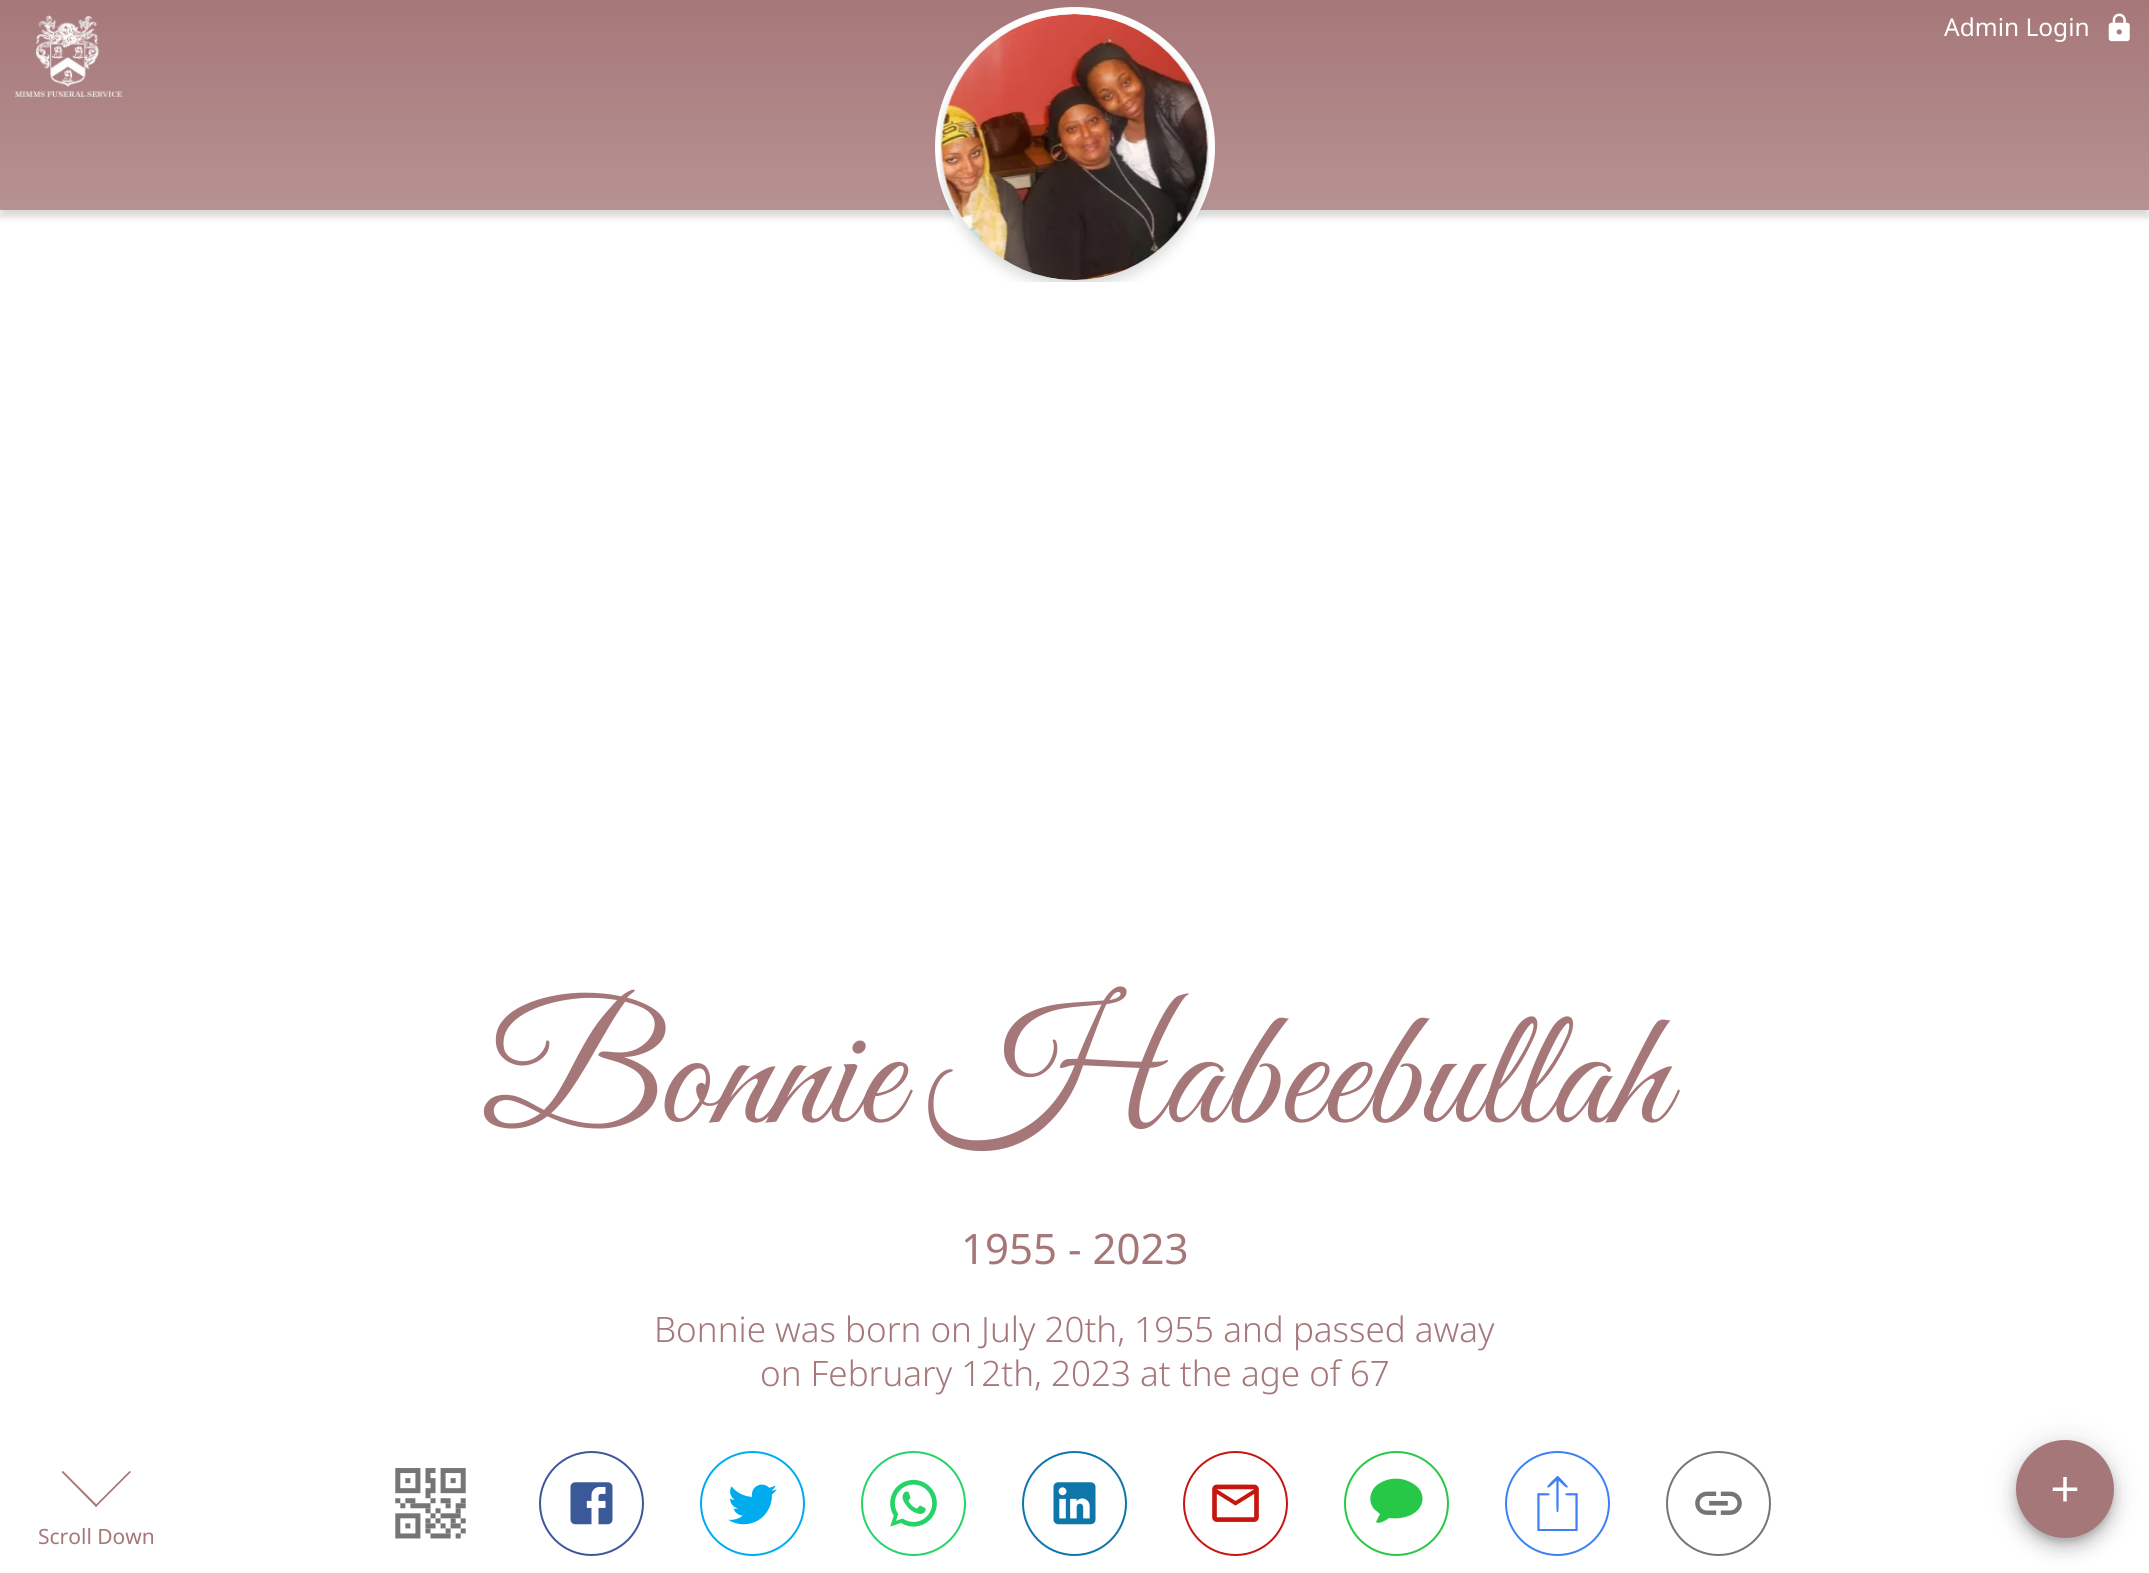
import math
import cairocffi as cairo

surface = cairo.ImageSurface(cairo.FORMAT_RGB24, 2149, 1573)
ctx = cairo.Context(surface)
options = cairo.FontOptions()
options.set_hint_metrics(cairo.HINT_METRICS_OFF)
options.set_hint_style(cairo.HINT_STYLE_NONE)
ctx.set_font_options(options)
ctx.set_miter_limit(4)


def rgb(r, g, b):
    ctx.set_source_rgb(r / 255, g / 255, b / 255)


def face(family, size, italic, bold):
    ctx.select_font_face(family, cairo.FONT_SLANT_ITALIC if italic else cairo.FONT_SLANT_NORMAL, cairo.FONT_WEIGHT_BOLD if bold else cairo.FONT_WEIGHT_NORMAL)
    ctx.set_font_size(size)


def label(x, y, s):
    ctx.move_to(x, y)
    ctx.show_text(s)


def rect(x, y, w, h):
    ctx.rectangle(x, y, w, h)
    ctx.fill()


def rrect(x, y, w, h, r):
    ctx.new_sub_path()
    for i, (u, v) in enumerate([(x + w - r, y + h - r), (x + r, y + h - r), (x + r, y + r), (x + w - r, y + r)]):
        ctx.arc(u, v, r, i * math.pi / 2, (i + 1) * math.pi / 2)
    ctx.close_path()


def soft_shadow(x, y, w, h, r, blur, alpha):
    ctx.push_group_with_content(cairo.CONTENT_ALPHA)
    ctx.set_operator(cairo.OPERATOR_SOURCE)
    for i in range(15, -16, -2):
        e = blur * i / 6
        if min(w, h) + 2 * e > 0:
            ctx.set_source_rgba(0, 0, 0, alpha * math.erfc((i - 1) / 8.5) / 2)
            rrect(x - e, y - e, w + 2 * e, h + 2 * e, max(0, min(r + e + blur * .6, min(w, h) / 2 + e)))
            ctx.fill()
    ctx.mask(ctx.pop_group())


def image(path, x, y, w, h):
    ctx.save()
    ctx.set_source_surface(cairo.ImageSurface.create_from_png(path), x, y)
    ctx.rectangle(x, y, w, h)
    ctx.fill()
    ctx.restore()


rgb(255, 255, 255)
ctx.paint()
rgb(0, 0, 0)
soft_shadow(0, 7, 2149, 210, 0, 3.5, 0.15)
gradient = cairo.LinearGradient(1075, 0, 1075, 210)
gradient.add_color_stop_rgba(0, 0.651, 0.467, 0.475, 1)
gradient.add_color_stop_rgba(1, 0.718, 0.573, 0.576, 1)
ctx.set_source(gradient)
rect(0, 0, 2149, 210)
rgb(255, 255, 255)
ctx.arc(1075, 147, 140, 0, 2 * math.pi)
ctx.fill()
image('image0.png', 940, 14, 269, 268)
image('image1.png', 15, 15, 108, 82)
face('Noto Sans', 24.5, 0, 0)
label(1944, 36, 'Admin Login')
image('image2.png', 2108, 13, 22, 29)
face('Great Vibes', 168, 0, 0)
rgb(166, 119, 121)
label(482, 1122, 'Bonnie Habeebullah')
face('Noto Sans', 42, 0, 0)
label(961, 1264, '1955 - 2023')
face('Noto Sans Light', 35, 0, 0)
label(654, 1342, 'Bonnie was born on July 20th, 1955 and passed away')
label(760, 1386, 'on February 12th, 2023 at the age of 67')
image('image3.png', 395, 1468, 71, 71)
ctx.arc(591.5, 1503.5, 51.5, 0, 2 * math.pi)
rgb(59, 89, 152)
ctx.stroke()
image('image4.png', 570, 1482, 43, 43)
ctx.arc(752.5, 1503.5, 51.5, 0, 2 * math.pi)
rgb(0, 172, 238)
ctx.stroke()
image('image5.png', 728, 1484, 49, 41)
ctx.arc(913.5, 1503.5, 51.5, 0, 2 * math.pi)
rgb(37, 211, 102)
ctx.stroke()
image('image6.png', 890, 1479, 47, 48)
ctx.arc(1074.5, 1503.5, 51.5, 0, 2 * math.pi)
rgb(14, 118, 168)
ctx.stroke()
image('image7.png', 1053, 1482, 43, 43)
ctx.arc(1235.5, 1503.5, 51.5, 0, 2 * math.pi)
rgb(199, 22, 16)
ctx.stroke()
image('image8.png', 1212, 1484, 47, 38)
ctx.arc(1396.5, 1503.5, 51.5, 0, 2 * math.pi)
rgb(39, 200, 72)
ctx.stroke()
ctx.new_path()
ctx.move_to(1391, 1479)
ctx.curve_to(1385, 1480, 1378, 1483, 1374, 1488)
ctx.curve_to(1369, 1495, 1369, 1503, 1374, 1509)
ctx.line_to(1380, 1514)
ctx.line_to(1376, 1522)
ctx.curve_to(1379, 1525, 1388, 1519, 1389, 1518)
ctx.curve_to(1397, 1519, 1404, 1518, 1411, 1515)
ctx.curve_to(1427, 1507, 1426, 1489, 1410, 1482)
ctx.curve_to(1404, 1479, 1398, 1478, 1391, 1479)
ctx.close_path()
ctx.fill()
ctx.arc(1557.5, 1503.5, 51.5, 0, 2 * math.pi)
rgb(62, 128, 245)
ctx.stroke()
image('image9.png', 1537, 1475, 41, 56)
ctx.arc(1718.5, 1503.5, 51.5, 0, 2 * math.pi)
rgb(117, 117, 117)
ctx.stroke()
image('image10.png', 1695, 1491, 47, 24)
rgb(166, 119, 121)
ctx.new_path()
ctx.move_to(95, 1505.5)
ctx.line_to(129.5, 1471)
ctx.line_to(131, 1472)
ctx.line_to(96, 1507)
ctx.close_path()
ctx.fill()
ctx.new_path()
ctx.move_to(61.5, 1472)
ctx.line_to(63, 1471)
ctx.line_to(97.5, 1505.5)
ctx.line_to(96, 1507)
ctx.close_path()
ctx.fill()
face('Noto Sans', 21, 0, 0)
label(38, 1544, 'Scroll Down')
rgb(0, 0, 0)
soft_shadow(2016, 1442, 98, 98, 49, 16, 0.12)
soft_shadow(2016, 1451, 98, 98, 49, 9, 0.14)
soft_shadow(2018, 1447, 94, 95, 47, 4.5, 0.2)
rgb(166, 119, 121)
ctx.arc(2065, 1489, 49, 0, 2 * math.pi)
ctx.fill()
image('image11.png', 2052, 1477, 26, 25)
surface.write_to_png('render.png')
